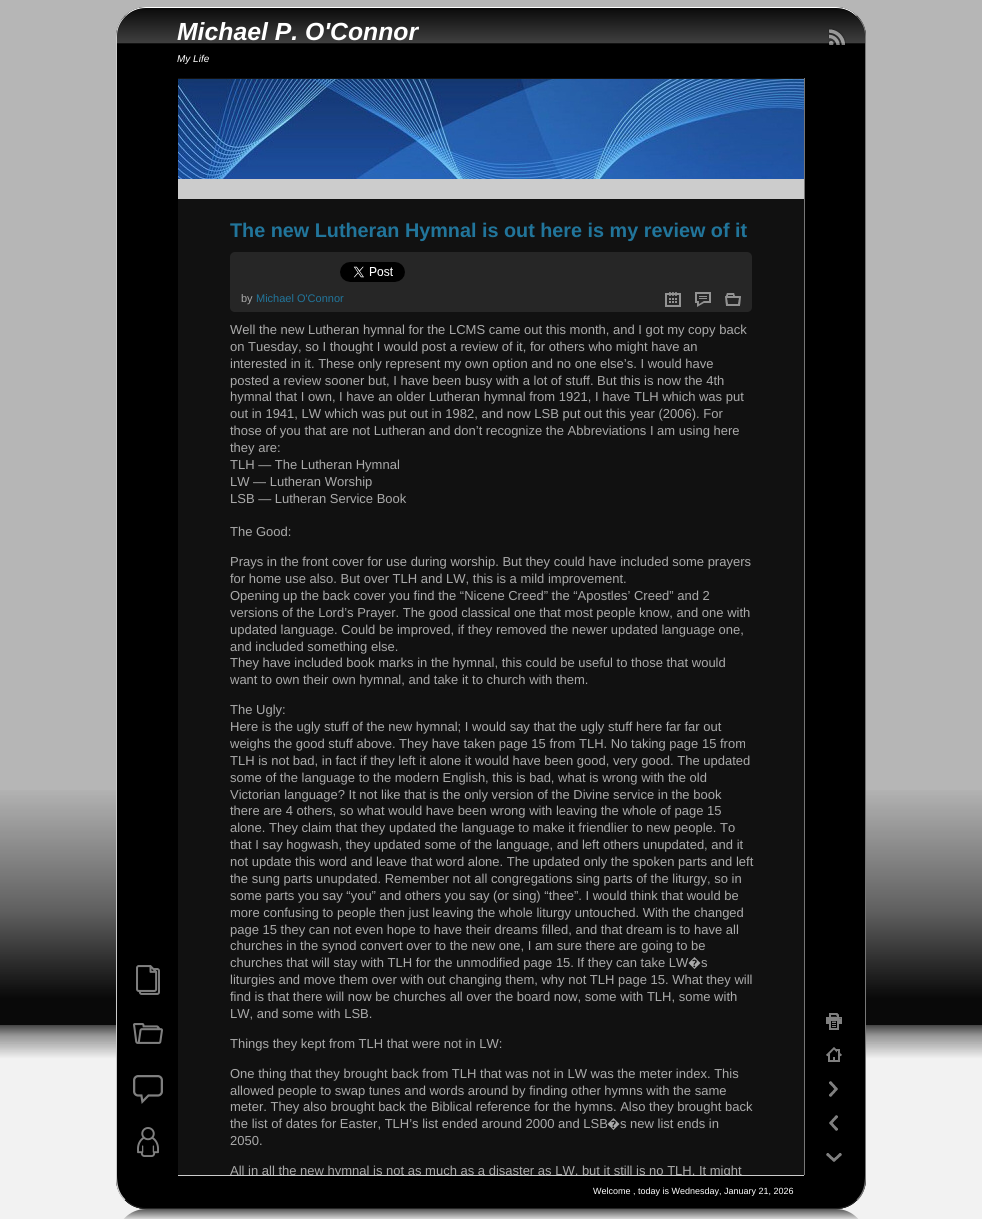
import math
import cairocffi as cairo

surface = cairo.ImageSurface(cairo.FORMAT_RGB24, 982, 1219)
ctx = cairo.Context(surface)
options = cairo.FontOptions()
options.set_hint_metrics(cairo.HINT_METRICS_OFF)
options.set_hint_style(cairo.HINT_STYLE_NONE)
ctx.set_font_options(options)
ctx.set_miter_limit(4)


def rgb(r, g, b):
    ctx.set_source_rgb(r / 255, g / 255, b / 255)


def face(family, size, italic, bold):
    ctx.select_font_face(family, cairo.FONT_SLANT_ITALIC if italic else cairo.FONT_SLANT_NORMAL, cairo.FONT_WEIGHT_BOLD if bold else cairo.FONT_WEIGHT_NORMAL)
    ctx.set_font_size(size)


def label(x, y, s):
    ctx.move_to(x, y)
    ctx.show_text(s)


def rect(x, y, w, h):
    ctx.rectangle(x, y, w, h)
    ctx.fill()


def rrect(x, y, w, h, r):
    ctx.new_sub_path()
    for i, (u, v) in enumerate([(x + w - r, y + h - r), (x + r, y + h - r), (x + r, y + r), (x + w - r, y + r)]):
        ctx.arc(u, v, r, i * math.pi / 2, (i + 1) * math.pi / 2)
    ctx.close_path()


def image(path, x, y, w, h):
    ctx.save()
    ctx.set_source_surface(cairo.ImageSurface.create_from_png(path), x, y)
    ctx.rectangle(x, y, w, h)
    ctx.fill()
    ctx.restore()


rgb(182, 182, 182)
ctx.paint()
image('image0.png', 0, 790, 982, 429)
rgb(0, 0, 0)
ctx.new_path()
ctx.move_to(146, 7)
ctx.line_to(836, 7)
ctx.curve_to(852.5, 7, 866, 20.5, 866, 37)
ctx.line_to(866, 78)
ctx.line_to(116, 78)
ctx.line_to(116, 37)
ctx.curve_to(116, 20.5, 129.5, 7, 146, 7)
ctx.close_path()
ctx.fill()
image('image1.png', 116, 7, 750, 29)
rgb(255, 255, 255)
ctx.new_path()
ctx.move_to(146, 7)
ctx.curve_to(138, 7, 130, 10, 125, 16)
ctx.line_to(126, 16)
ctx.curve_to(131, 11, 138, 8, 146, 8)
ctx.line_to(836, 8)
ctx.curve_to(844, 8, 851, 11, 856, 16)
ctx.line_to(857, 16)
ctx.curve_to(852, 10, 844, 7, 836, 7)
ctx.close_path()
ctx.fill()
rgb(119, 119, 119)
ctx.new_path()
ctx.move_to(865, 78)
ctx.line_to(866, 78)
ctx.line_to(866, 37)
ctx.curve_to(866, 28, 863, 21, 857, 16)
ctx.line_to(856, 16)
ctx.curve_to(862, 22, 865, 29, 865, 37)
ctx.close_path()
ctx.fill()
rgb(204, 204, 204)
ctx.new_path()
ctx.move_to(116, 78)
ctx.line_to(117, 78)
ctx.line_to(117, 37)
ctx.curve_to(117, 29, 120, 22, 126, 16)
ctx.line_to(125, 16)
ctx.curve_to(119, 21, 116, 28, 116, 37)
ctx.close_path()
ctx.fill()
gradient = cairo.LinearGradient(491, 8, 491, 78)
gradient.add_color_stop_rgba(0, 1, 1, 1, 0.04)
gradient.add_color_stop_rgba(0.5, 1, 1, 1, 0.25)
gradient.add_color_stop_rgba(0.51, 1, 1, 1, 0)
ctx.set_source(gradient)
ctx.new_path()
ctx.move_to(147, 8)
ctx.line_to(835, 8)
ctx.curve_to(851.5, 8, 865, 21.5, 865, 38)
ctx.line_to(865, 78)
ctx.line_to(117, 78)
ctx.line_to(117, 38)
ctx.curve_to(117, 21.5, 130.5, 8, 147, 8)
ctx.close_path()
ctx.fill()
face('Liberation Sans', 24.75, 1, 1)
rgb(255, 255, 255)
label(177, 40, 'Michael P. O\'Connor')
image('image2.png', 828, 28, 18, 17)
face('Liberation Sans', 10, 1, 0)
label(177, 62, 'My Life')
rgb(0, 0, 0)
rect(117, 78, 748, 1097)
rgb(17, 17, 17)
rect(178, 78, 626, 1097)
image('image3.png', 178, 79, 626, 100)
rgb(204, 204, 204)
rect(178, 179, 626, 20)
face('Liberation Sans', 19.8, 0, 1)
rgb(33, 117, 155)
label(230, 237, 'The new Lutheran Hymnal is out here is my review of it')
rgb(38, 38, 38)
rrect(230, 252, 522, 41, 5)
ctx.fill()
image('image4.png', 340, 262, 65, 20)
ctx.new_path()
ctx.move_to(230, 288)
ctx.line_to(752, 288)
ctx.line_to(752, 307)
ctx.curve_to(752, 310, 750, 312, 747, 312)
ctx.line_to(235, 312)
ctx.curve_to(232, 312, 230, 310, 230, 307)
ctx.close_path()
ctx.fill()
face('Liberation Sans', 11, 0, 0)
rgb(170, 170, 170)
label(241, 302, 'by')
rgb(33, 117, 155)
label(256, 302, 'Michael O\'Connor')
image('image5.png', 665, 292, 16, 15)
image('image6.png', 695, 292, 16, 15)
image('image7.png', 725, 293, 16, 13)
face('Liberation Sans', 13, 0, 0)
rgb(170, 170, 170)
label(230, 334, 'Well the new Lutheran hymnal for the LCMS came out this month, and I got my copy back')
label(230, 351, 'on Tuesday, so I thought I would post a review of it, for others who might have an')
label(230, 368, 'interested in it. These only represent my own option and no one else’s. I would have')
label(230, 385, 'posted a review sooner but, I have been busy with a lot of stuff. But this is now the 4th')
label(230, 401, 'hymnal that I own, I have an older Lutheran hymnal from 1921, I have TLH which was put')
label(230, 418, 'out in 1941, LW which was put out in 1982, and now LSB put out this year (2006). For')
label(230, 435, 'those of you that are not Lutheran and don’t recognize the Abbreviations I am using here')
label(230, 452, 'they are:')
label(230, 469, 'TLH — The Lutheran Hymnal')
label(230, 486, 'LW — Lutheran Worship')
label(230, 503, 'LSB — Lutheran Service Book')
label(230, 536, 'The Good:')
label(230, 566, 'Prays in the front cover for use during worship. But they could have included some prayers')
label(230, 583, 'for home use also. But over TLH and LW, this is a mild improvement.')
label(230, 600, 'Opening up the back cover you find the “Nicene Creed” the “Apostles’ Creed” and 2')
label(230, 617, 'versions of the Lord’s Prayer. The good classical one that most people know, and one with')
label(230, 634, 'updated language. Could be improved, if they removed the newer updated language one,')
label(230, 651, 'and included something else.')
label(230, 667, 'They have included book marks in the hymnal, this could be useful to those that would')
label(230, 684, 'want to own their own hymnal, and take it to church with them.')
label(230, 714, 'The Ugly:')
label(230, 731, 'Here is the ugly stuff of the new hymnal; I would say that the ugly stuff here far far out')
label(230, 748, 'weighs the good stuff above. They have taken page 15 from TLH. No taking page 15 from')
label(230, 765, 'TLH is not bad, in fact if they left it alone it would have been good, very good. The updated')
label(230, 782, 'some of the language to the modern English, this is bad, what is wrong with the old')
label(230, 799, 'Victorian language? It not like that is the only version of the Divine service in the book')
label(230, 815, 'there are 4 others, so what would have been wrong with leaving the whole of page 15')
label(230, 832, 'alone. They claim that they updated the language to make it friendlier to new people. To')
label(230, 849, 'that I say hogwash, they updated some of the language, and left others unupdated, and it')
label(230, 866, 'not update this word and leave that word alone. The updated only the spoken parts and left')
label(230, 883, 'the sung parts unupdated. Remember not all congregations sing parts of the liturgy, so in')
label(230, 900, 'some parts you say “you” and others you say (or sing) “thee”. I would think that would be')
label(230, 917, 'more confusing to people then just leaving the whole liturgy untouched. With the changed')
label(230, 934, 'page 15 they can not even hope to have their dreams filled, and that dream is to have all')
label(230, 950, 'churches in the synod convert over to the new one, I am sure there are going to be')
label(230, 967, 'churches that will stay with TLH for the unmodified page 15.')
label(577, 967, 'If they can take LW')
face('Noto Sans', 13, 0, 0)
label(688, 967, '�')
face('Liberation Sans', 13, 0, 0)
label(701, 967, 's')
label(230, 984, 'liturgies and move them over with out changing them, why not TLH page 15. What they will')
label(230, 1001, 'find is that there will now be churches all over the board now, some with TLH, some with')
label(230, 1018, 'LW, and some with LSB.')
label(230, 1048, 'Things they kept from TLH that were not in LW:')
label(230, 1078, 'One thing that they brought back from TLH that was not in LW was the meter index. This')
label(230, 1095, 'allowed people to swap tunes and words around by finding other hymns with the same')
label(230, 1111, 'meter. They also brought back the Biblical reference for the hymns. Also they brought back')
label(230, 1128, 'the list of dates for Easter, TLH’s list ended around 2000 and LSB')
face('Noto Sans', 13, 0, 0)
label(607, 1128, '�')
face('Liberation Sans', 13, 0, 0)
label(620, 1128, 's new list ends in')
label(230, 1145, '2050.')
label(230, 1175, 'All in all the new hymnal is not as much as a disaster as LW, but it still is no TLH. It might')
rgb(0, 0, 0)
ctx.new_path()
ctx.move_to(116, 1175)
ctx.line_to(866, 1175)
ctx.line_to(866, 1179)
ctx.curve_to(866, 1195.5, 852.5, 1209, 836, 1209)
ctx.line_to(146, 1209)
ctx.curve_to(129.5, 1209, 116, 1195.5, 116, 1179)
ctx.close_path()
ctx.fill()
image('image8.png', 116, 1179, 750, 30)
rgb(119, 119, 119)
ctx.new_path()
ctx.move_to(866, 1175)
ctx.line_to(865, 1175)
ctx.curve_to(865, 1184.5, 863.5, 1192.5, 856.5, 1199.5)
ctx.line_to(857.5, 1200.5)
ctx.curve_to(863, 1195, 866, 1187.5, 866, 1179)
ctx.close_path()
ctx.fill()
rgb(38, 38, 38)
ctx.new_path()
ctx.move_to(146, 1209)
ctx.line_to(836, 1209)
ctx.curve_to(844, 1209, 852, 1206, 857, 1200)
ctx.line_to(856, 1200)
ctx.curve_to(851, 1205, 844, 1208, 836, 1208)
ctx.line_to(146, 1208)
ctx.curve_to(138, 1208, 131, 1205, 126, 1200)
ctx.line_to(125, 1200)
ctx.curve_to(130, 1206, 138, 1209, 146, 1209)
ctx.close_path()
ctx.fill()
rgb(204, 204, 204)
ctx.new_path()
ctx.move_to(116, 1175)
ctx.line_to(117, 1175)
ctx.curve_to(117, 1184.5, 118.5, 1192.5, 125.5, 1199.5)
ctx.line_to(124.5, 1200.5)
ctx.curve_to(119, 1195, 116, 1187.5, 116, 1179)
ctx.close_path()
ctx.fill()
gradient = cairo.LinearGradient(491, 1175, 491, 1208)
gradient.add_color_stop_rgba(0.3, 0, 0, 0, 0)
gradient.add_color_stop_rgba(1, 0, 0, 0, 0.4)
ctx.set_source(gradient)
ctx.new_path()
ctx.move_to(117, 1175)
ctx.line_to(865, 1175)
ctx.line_to(865, 1178)
ctx.curve_to(865, 1194.5, 851.5, 1208, 835, 1208)
ctx.line_to(147, 1208)
ctx.curve_to(130.5, 1208, 117, 1194.5, 117, 1178)
ctx.close_path()
ctx.fill()
image('image9.png', 136, 965, 24, 30)
image('image10.png', 133, 1023, 30, 21)
image('image11.png', 133, 1075, 30, 29)
image('image12.png', 137, 1127, 22, 30)
image('image13.png', 826, 1013, 16, 17)
image('image14.png', 826, 1047, 16, 15)
image('image15.png', 829, 1081, 9, 16)
image('image16.png', 829, 1115, 9, 16)
image('image17.png', 826, 1153, 16, 9)
rgb(204, 204, 204)
rect(178, 1175, 626, 1)
face('Liberation Sans', 9, 0, 0)
rgb(255, 255, 255)
label(593, 1194, 'Welcome , today is Wednesday, January 21, 2026')
gradient = cairo.LinearGradient(491, 1209, 491, 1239)
gradient.add_color_stop_rgba(0, 0.333, 0.333, 0.333, 1)
gradient.add_color_stop_rgba(0.4, 0.949, 0.949, 0.949, 1)
ctx.set_source(gradient)
ctx.new_path()
ctx.move_to(146, 1209)
ctx.line_to(836, 1209)
ctx.curve_to(852.5, 1209, 866, 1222.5, 866, 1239)
ctx.line_to(116, 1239)
ctx.curve_to(116, 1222.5, 129.5, 1209, 146, 1209)
ctx.close_path()
ctx.fill()
rgb(119, 119, 119)
rect(865, 78, 1, 1097)
rgb(204, 204, 204)
rect(116, 78, 1, 1097)
rgb(119, 119, 119)
rect(804, 78, 1, 1097)
surface.write_to_png('render.png')
